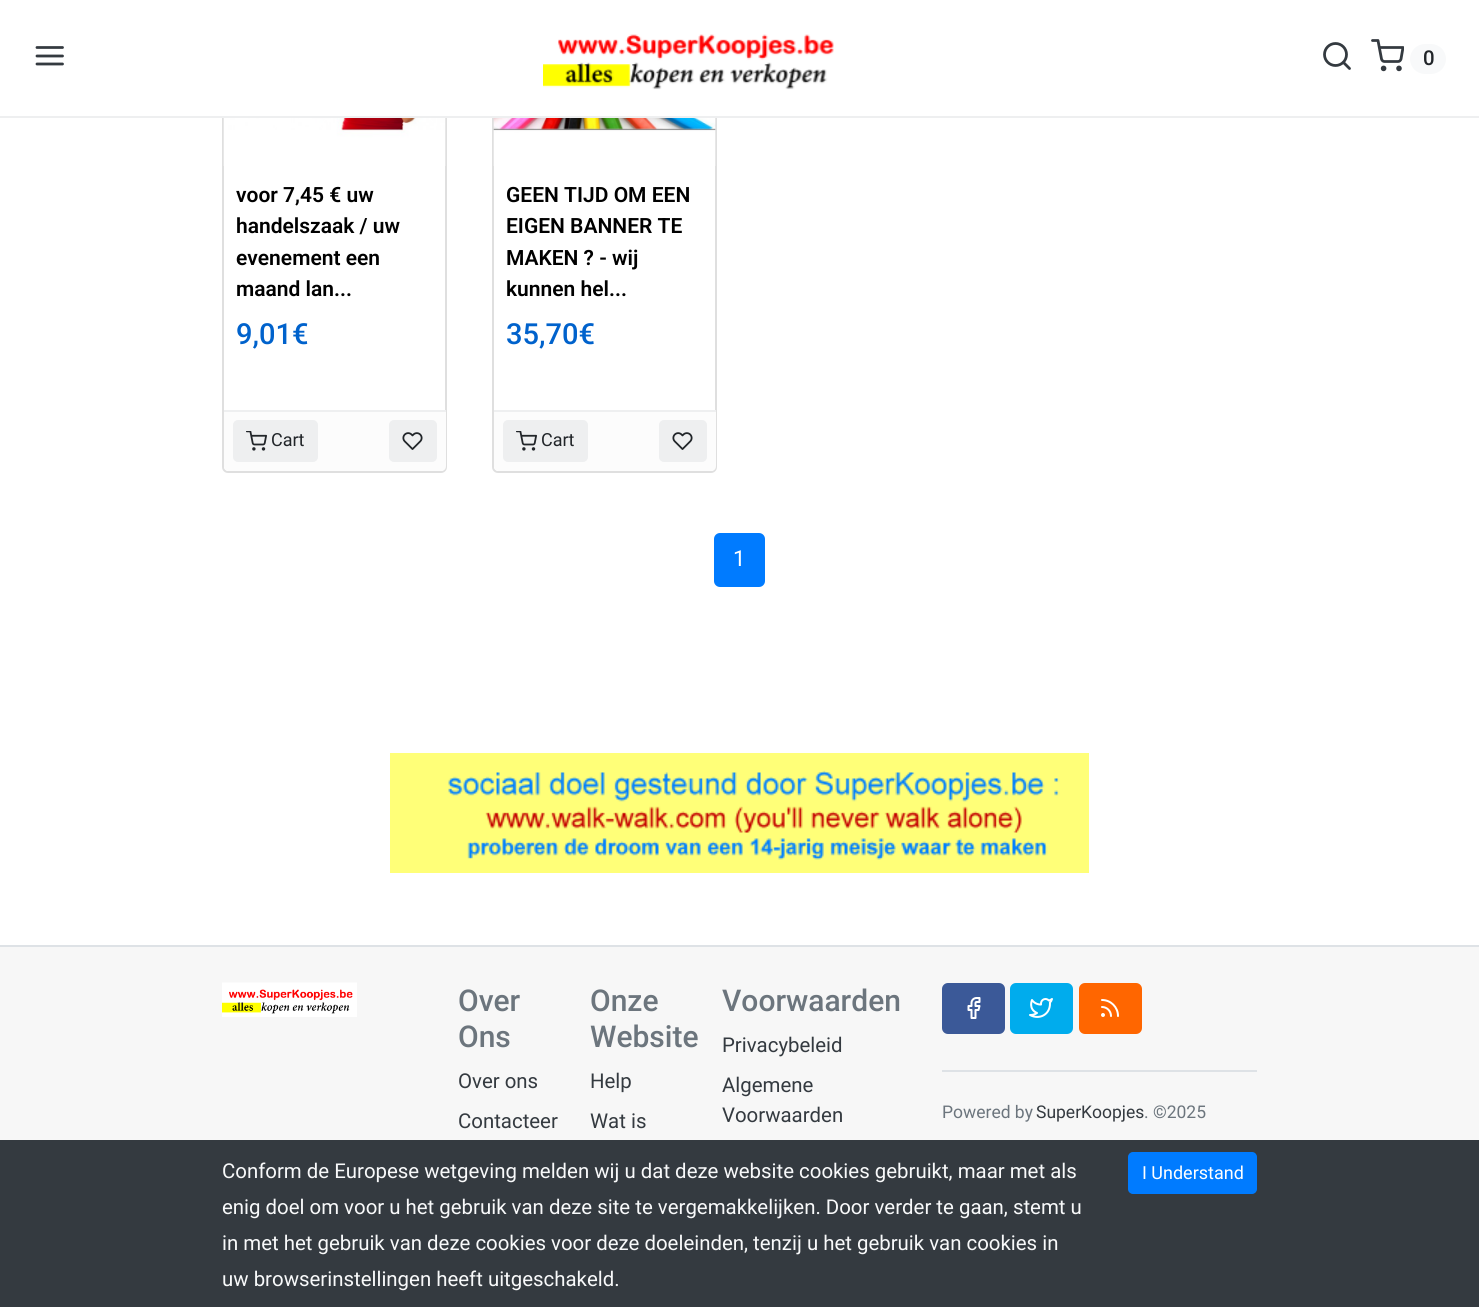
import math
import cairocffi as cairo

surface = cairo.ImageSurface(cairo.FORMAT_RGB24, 1479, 1307)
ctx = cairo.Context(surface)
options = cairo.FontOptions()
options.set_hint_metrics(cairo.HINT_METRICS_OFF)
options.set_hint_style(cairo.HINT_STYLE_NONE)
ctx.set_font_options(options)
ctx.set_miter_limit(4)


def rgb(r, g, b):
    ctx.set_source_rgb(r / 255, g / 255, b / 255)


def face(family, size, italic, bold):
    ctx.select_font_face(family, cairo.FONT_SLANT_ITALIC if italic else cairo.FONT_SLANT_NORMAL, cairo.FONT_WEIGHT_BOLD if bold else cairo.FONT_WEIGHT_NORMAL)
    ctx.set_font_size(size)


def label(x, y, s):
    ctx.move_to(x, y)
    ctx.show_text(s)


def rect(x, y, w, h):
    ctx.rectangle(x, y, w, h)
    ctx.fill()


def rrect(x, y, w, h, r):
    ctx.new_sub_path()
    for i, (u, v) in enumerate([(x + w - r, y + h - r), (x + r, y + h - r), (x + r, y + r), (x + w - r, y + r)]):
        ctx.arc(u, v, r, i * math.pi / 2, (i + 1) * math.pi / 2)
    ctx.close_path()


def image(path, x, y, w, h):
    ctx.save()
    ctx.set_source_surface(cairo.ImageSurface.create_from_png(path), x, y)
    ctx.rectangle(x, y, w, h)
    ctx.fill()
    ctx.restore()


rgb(255, 255, 255)
ctx.paint()
rrect(223, -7, 223, 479, 5)
rgb(223, 223, 223)
ctx.stroke()
rrect(493, -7, 223, 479, 5)
ctx.stroke()
rgb(255, 255, 255)
rect(222, 0, 495, 116)
rgb(238, 239, 240)
rect(0, 116, 1479, 2)
ctx.new_path()
ctx.move_to(37, 56)
ctx.line_to(62.5, 56)
ctx.move_to(37, 47.5)
ctx.line_to(62.5, 47.5)
ctx.move_to(37, 64)
ctx.line_to(62.5, 64)
rgb(52, 58, 64)
ctx.set_line_width(2.8)
ctx.set_line_cap(cairo.LINE_CAP_ROUND)
ctx.set_line_join(cairo.LINE_JOIN_ROUND)
ctx.stroke()
image('image0.png', 543, 34, 291, 56)
ctx.arc(1335.5, 54.5, 11, 0, 2 * math.pi)
ctx.set_line_cap(cairo.LINE_CAP_BUTT)
ctx.set_line_join(cairo.LINE_JOIN_MITER)
ctx.stroke()
ctx.new_path()
ctx.move_to(1349.5, 68.5)
ctx.line_to(1343.5, 62.5)
ctx.set_line_cap(cairo.LINE_CAP_ROUND)
ctx.set_line_join(cairo.LINE_JOIN_ROUND)
ctx.stroke()
ctx.save()
ctx.rectangle(1371, 39, 33, 33)
ctx.clip()
ctx.new_path()
ctx.move_to(1372.5, 40.5)
ctx.line_to(1378, 40.5)
ctx.line_to(1381.5, 59)
ctx.curve_to(1382, 60.5, 1383, 61.5, 1384.5, 61.5)
ctx.line_to(1398, 61.5)
ctx.curve_to(1399.5, 61.5, 1400.5, 60.5, 1401, 59)
ctx.line_to(1403, 47.5)
ctx.line_to(1379.5, 47.5)
ctx.stroke()
ctx.restore()
rgb(248, 249, 250)
rrect(1410, 44, 36, 30, 15)
ctx.fill()
face('Roboto Medium', 20.4, 0, 0)
rgb(33, 37, 41)
label(1423, 65, '0')
ctx.new_path()
ctx.arc(1383.6, 68.4, 1.4, 0, 2 * math.pi)
rgb(52, 58, 64)
ctx.set_line_cap(cairo.LINE_CAP_BUTT)
ctx.set_line_join(cairo.LINE_JOIN_MITER)
ctx.stroke()
ctx.arc(1399, 68.4, 1.4, 0, 2 * math.pi)
ctx.stroke()
image('image1.png', 223, 118, 223, 48)
face('Roboto SemiBold', 21, 0, 0)
rgb(0, 0, 0)
label(236, 202, 'voor 7,45 € uw')
label(236, 233, 'handelszaak / uw')
label(236, 265, 'evenement een')
label(236, 296, 'maand lan...')
face('Roboto Medium', 29, 0, 0)
rgb(0, 98, 204)
label(236, 344, '9,01€')
rgb(252, 252, 252)
ctx.new_path()
ctx.move_to(224, 410)
ctx.line_to(446, 410)
ctx.line_to(446, 466)
ctx.curve_to(446, 469, 444, 471, 441, 471)
ctx.line_to(229, 471)
ctx.curve_to(226, 471, 224, 469, 224, 466)
ctx.close_path()
ctx.fill()
rgb(238, 239, 240)
rect(224, 410, 222, 2)
rrect(234, 421, 83, 40, 4)
ctx.fill_preserve()
ctx.set_line_width(2)
ctx.stroke()
image('image2.png', 246, 431, 21, 20)
face('Roboto', 18, 0, 0)
rgb(33, 37, 41)
label(271, 446, 'Cart')
rgb(238, 239, 240)
rrect(390, 421, 46, 40, 4)
ctx.fill_preserve()
ctx.stroke()
image('image3.png', 402, 432, 21, 18)
image('image4.png', 493, 118, 223, 48)
face('Roboto SemiBold', 21, 0, 0)
rgb(0, 0, 0)
label(506, 202, 'GEEN TIJD OM EEN')
label(506, 233, 'EIGEN BANNER TE')
label(506, 265, 'MAKEN ? - wij')
label(506, 296, 'kunnen hel...')
face('Roboto Medium', 29, 0, 0)
rgb(0, 98, 204)
label(506, 344, '35,70€')
rgb(252, 252, 252)
ctx.new_path()
ctx.move_to(494, 410)
ctx.line_to(716, 410)
ctx.line_to(716, 466)
ctx.curve_to(716, 469, 714, 471, 711, 471)
ctx.line_to(499, 471)
ctx.curve_to(496, 471, 494, 469, 494, 466)
ctx.close_path()
ctx.fill()
rgb(238, 239, 240)
rect(494, 410, 222, 2)
rrect(504, 421, 83, 40, 4)
ctx.fill_preserve()
ctx.stroke()
image('image2.png', 516, 431, 21, 20)
face('Roboto', 18, 0, 0)
rgb(33, 37, 41)
label(541, 446, 'Cart')
rgb(238, 239, 240)
rrect(660, 421, 46, 40, 4)
ctx.fill_preserve()
ctx.stroke()
image('image3.png', 672, 432, 21, 18)
rgb(0, 123, 255)
rrect(715, 534, 49, 52, 5)
ctx.fill_preserve()
ctx.stroke()
face('Roboto', 22, 0, 0)
rgb(255, 255, 255)
label(733, 566, '1')
image('image5.png', 390, 753, 699, 120)
rgb(247, 247, 247)
rect(0, 947, 1479, 193)
rgb(222, 226, 230)
rect(0, 945, 1479, 2)
image('image6.png', 222, 982, 135, 35)
face('Roboto Medium', 30, 0, 0)
rgb(108, 117, 125)
label(458, 1011, 'Over')
label(458, 1047, 'Ons')
face('Roboto', 20.4, 0, 0)
rgb(52, 58, 64)
label(458, 1088, 'Over ons')
label(458, 1128, 'Contacteer')
face('Roboto Medium', 30, 0, 0)
rgb(108, 117, 125)
label(590, 1011, 'Onze')
label(590, 1047, 'Website')
face('Roboto', 20.4, 0, 0)
rgb(52, 58, 64)
label(590, 1088, 'Help')
label(590, 1128, 'Wat is')
face('Roboto Medium', 30, 0, 0)
rgb(108, 117, 125)
label(722, 1011, 'Voorwaarden')
face('Roboto', 20.4, 0, 0)
rgb(52, 58, 64)
label(722, 1052, 'Privacybeleid')
label(722, 1092, 'Algemene')
label(722, 1122, 'Voorwaarden')
rgb(59, 89, 152)
rrect(942, 983, 63, 51, 6)
ctx.fill()
image('image7.png', 967, 997, 14, 22)
rgb(0, 172, 237)
rrect(1010, 983, 63, 51, 6)
ctx.fill()
image('image8.png', 1029, 998, 24, 20)
rgb(255, 102, 0)
rrect(1079, 983, 63, 51, 6)
ctx.fill()
image('image9.png', 1101, 999, 18, 18)
rgb(222, 226, 230)
rect(942, 1070, 315, 2)
face('Roboto', 17.5, 0, 0)
rgb(108, 117, 125)
label(942, 1118, 'Powered by')
rgb(52, 58, 64)
label(1036, 1118, 'SuperKoopjes')
rgb(108, 117, 125)
label(1144, 1118, '. ©2025')
rgb(52, 58, 64)
rect(0, 1140, 1479, 167)
face('Roboto', 20.4, 0, 0)
rgb(248, 249, 250)
label(222, 1178, 'Conform de Europese wetgeving melden wij u dat deze website cookies gebruikt, maar met als')
label(222, 1214, 'enig doel om voor u het gebruik van deze site te vergemakkelijken. Door verder te gaan, stemt u')
label(222, 1250, 'in met het gebruik van deze cookies voor deze doeleinden, tenzij u het gebruik van cookies in')
label(222, 1286, 'uw browserinstellingen heeft uitgeschakeld.')
rgb(0, 123, 255)
rrect(1129, 1153, 127, 40, 4)
ctx.fill_preserve()
ctx.stroke()
face('Roboto', 18, 0, 0)
rgb(255, 255, 255)
label(1142, 1179, 'I Understand')
surface.write_to_png('render.png')
